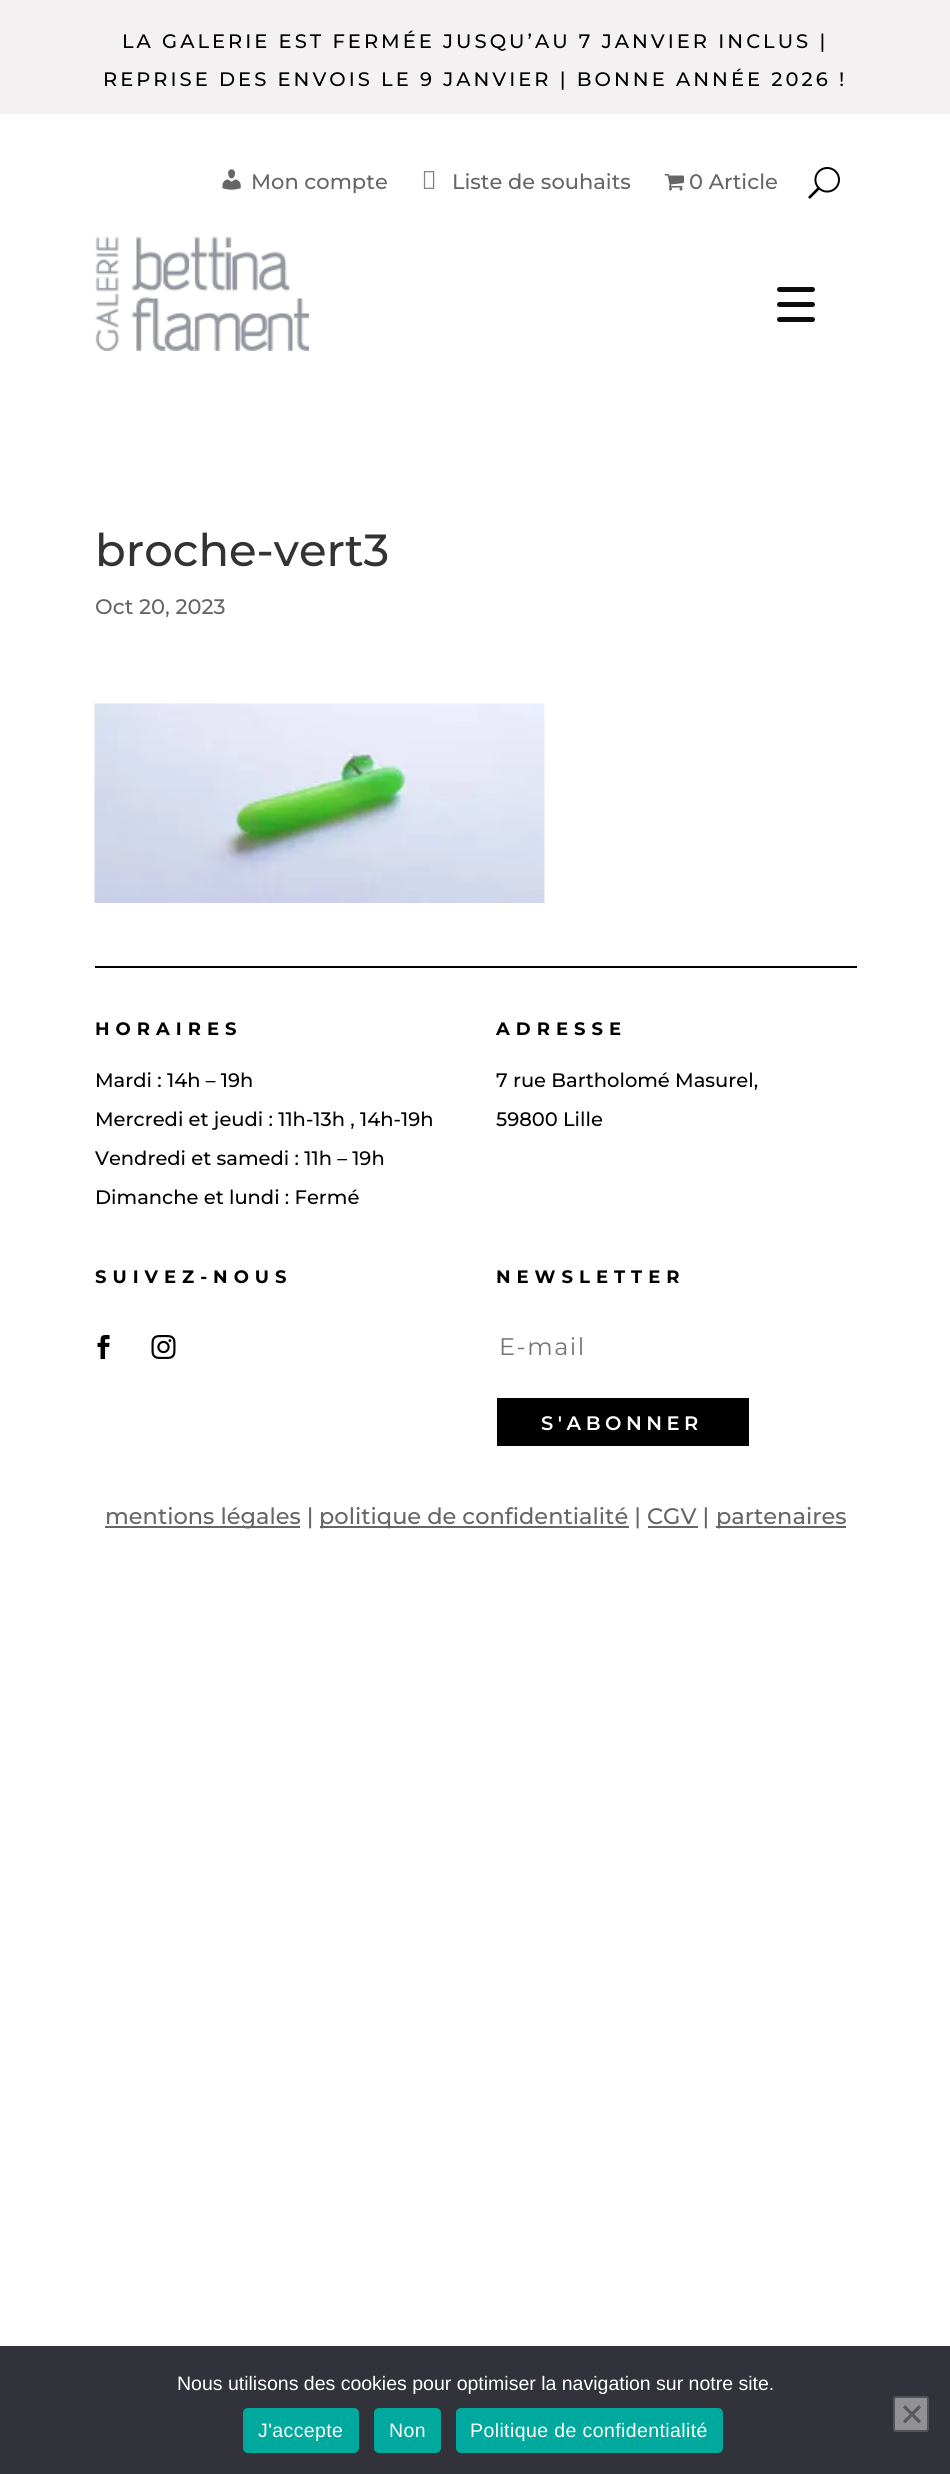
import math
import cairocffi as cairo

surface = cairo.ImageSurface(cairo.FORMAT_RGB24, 950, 2474)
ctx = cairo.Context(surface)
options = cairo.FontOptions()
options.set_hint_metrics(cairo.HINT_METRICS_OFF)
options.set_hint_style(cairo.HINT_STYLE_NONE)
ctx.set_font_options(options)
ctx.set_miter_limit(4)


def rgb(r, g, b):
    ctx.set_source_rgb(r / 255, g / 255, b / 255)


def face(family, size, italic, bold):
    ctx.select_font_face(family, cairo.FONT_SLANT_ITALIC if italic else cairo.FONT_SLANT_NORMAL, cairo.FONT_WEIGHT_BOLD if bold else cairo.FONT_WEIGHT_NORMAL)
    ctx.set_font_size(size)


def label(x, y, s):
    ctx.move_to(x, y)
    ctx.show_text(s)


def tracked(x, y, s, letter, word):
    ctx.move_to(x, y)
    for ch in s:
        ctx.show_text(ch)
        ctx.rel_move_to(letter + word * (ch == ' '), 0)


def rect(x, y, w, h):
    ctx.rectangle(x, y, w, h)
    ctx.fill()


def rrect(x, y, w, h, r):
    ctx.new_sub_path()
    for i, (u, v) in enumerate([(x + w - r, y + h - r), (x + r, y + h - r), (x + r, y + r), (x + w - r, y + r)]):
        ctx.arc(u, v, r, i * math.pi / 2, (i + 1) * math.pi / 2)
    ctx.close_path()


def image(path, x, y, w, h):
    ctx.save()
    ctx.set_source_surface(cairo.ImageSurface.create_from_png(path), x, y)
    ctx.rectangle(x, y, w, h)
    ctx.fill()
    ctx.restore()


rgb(255, 255, 255)
ctx.paint()
rgb(243, 241, 242)
rect(0, 0, 950, 114)
face('Montserrat Thin', 19.5, 0, 0)
rgb(0, 0, 0)
tracked(122, 48, 'LA GALERIE EST FERMÉE JUSQU’AU 7 JANVIER INCLUS |', 3, 0)
tracked(103, 86, 'REPRISE DES ENVOIS LE 9 JANVIER | BONNE ANNÉE 2026 !', 3, 0)
image('image0.png', 222, 169, 19, 21)
face('Montserrat Thin', 21, 0, 0)
rgb(102, 102, 102)
label(251, 189, 'Mon compte')
image('image1.png', 423, 171, 12, 18)
label(452, 189, 'Liste de souhaits')
image('image2.png', 664, 174, 20, 17)
label(689, 189, '0 Article')
image('image3.png', 808, 167, 32, 32)
image('image4.png', 95, 237, 214, 114)
rgb(12, 12, 12)
rrect(777, 302, 38, 5, 2.5)
ctx.fill()
rrect(777, 287, 38, 5, 2.5)
ctx.fill()
rrect(777, 317, 38, 5, 2.5)
ctx.fill()
face('Montserrat Thin', 45, 0, 0)
rgb(51, 51, 51)
label(95, 566, 'broche-vert3')
face('Montserrat Thin', 21, 0, 0)
rgb(102, 102, 102)
label(95, 614, 'Oct 20, 2023')
image('image5.png', 94, 703, 451, 200)
rgb(0, 0, 0)
rect(95, 966, 762, 2)
face('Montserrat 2 Thin', 18, 0, 0)
tracked(95, 1035, 'HORAIRES', 6, 0)
face('Montserrat Thin', 19.5, 0, 0)
label(95, 1087, 'Mardi : 14h – 19h')
label(95, 1126, 'Mercredi et jeudi : 11h-13h , 14h-19h')
label(95, 1165, 'Vendredi et samedi : 11h – 19h')
label(95, 1204, 'Dimanche et lundi : Fermé')
face('Montserrat 2 Thin', 18, 0, 0)
tracked(496, 1035, 'ADRESSE', 6, 0)
face('Montserrat Thin', 19.5, 0, 0)
label(496, 1087, '7 rue Bartholomé Masurel,')
label(496, 1126, '59800 Lille')
face('Montserrat 2 Thin', 18, 0, 0)
tracked(95, 1283, 'SUIVEZ-NOUS', 6, 0)
image('image6.png', 97, 1335, 13, 24)
image('image7.png', 151, 1335, 25, 24)
tracked(496, 1283, 'NEWSLETTER', 6, 0)
face('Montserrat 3 Thin', 24, 0, 0)
rgb(117, 117, 117)
tracked(499, 1355, 'E-mail', 1.5, 0)
rgb(0, 0, 0)
rect(497, 1398, 252, 48)
face('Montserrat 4 Thin', 19.5, 0, 0)
rgb(255, 255, 255)
tracked(541, 1430, 'S\'ABONNER', 4.5, 0)
rgb(102, 102, 102)
rect(105, 1526, 195, 2)
face('Montserrat Thin', 22.5, 0, 0)
label(105, 1524, 'mentions légales |')
rect(320, 1526, 309, 2)
label(319, 1524, 'politique de confidentialité | CGV |')
rect(716, 1526, 130, 2)
label(716, 1524, 'partenaires')
rect(648, 1526, 50, 2)
rgb(50, 50, 58)
rect(0, 2346, 950, 128)
face('Liberation Sans', 19.5, 0, 0)
rgb(255, 255, 255)
label(177, 2390, 'Nous utilisons des cookies pour optimiser la navigation sur notre site.')
rgb(0, 169, 157)
rrect(243, 2408, 116, 45, 5)
ctx.fill()
rgb(255, 255, 255)
tracked(258, 2437, 'J\'accepte', 0.4, 0)
rgb(0, 169, 157)
rrect(374, 2408, 67, 45, 5)
ctx.fill()
rgb(255, 255, 255)
tracked(389, 2437, 'Non', 0.4, 0)
rgb(0, 169, 157)
rrect(456, 2408, 267, 45, 5)
ctx.fill()
rgb(255, 255, 255)
tracked(470, 2437, 'Politique de confidentialité', 0.4, 0)
rgb(145, 145, 149)
rrect(894, 2397, 34, 34, 2)
ctx.fill_preserve()
rgb(84, 84, 88)
ctx.stroke()
rgb(89, 89, 93)
ctx.new_path()
ctx.move_to(919, 2405)
ctx.line_to(921, 2407.5)
ctx.line_to(905, 2423.5)
ctx.line_to(903, 2421)
ctx.close_path()
ctx.fill()
ctx.new_path()
ctx.move_to(903, 2407.5)
ctx.line_to(905, 2405)
ctx.line_to(921, 2421)
ctx.line_to(919, 2423.5)
ctx.close_path()
ctx.fill()
surface.write_to_png('render.png')
